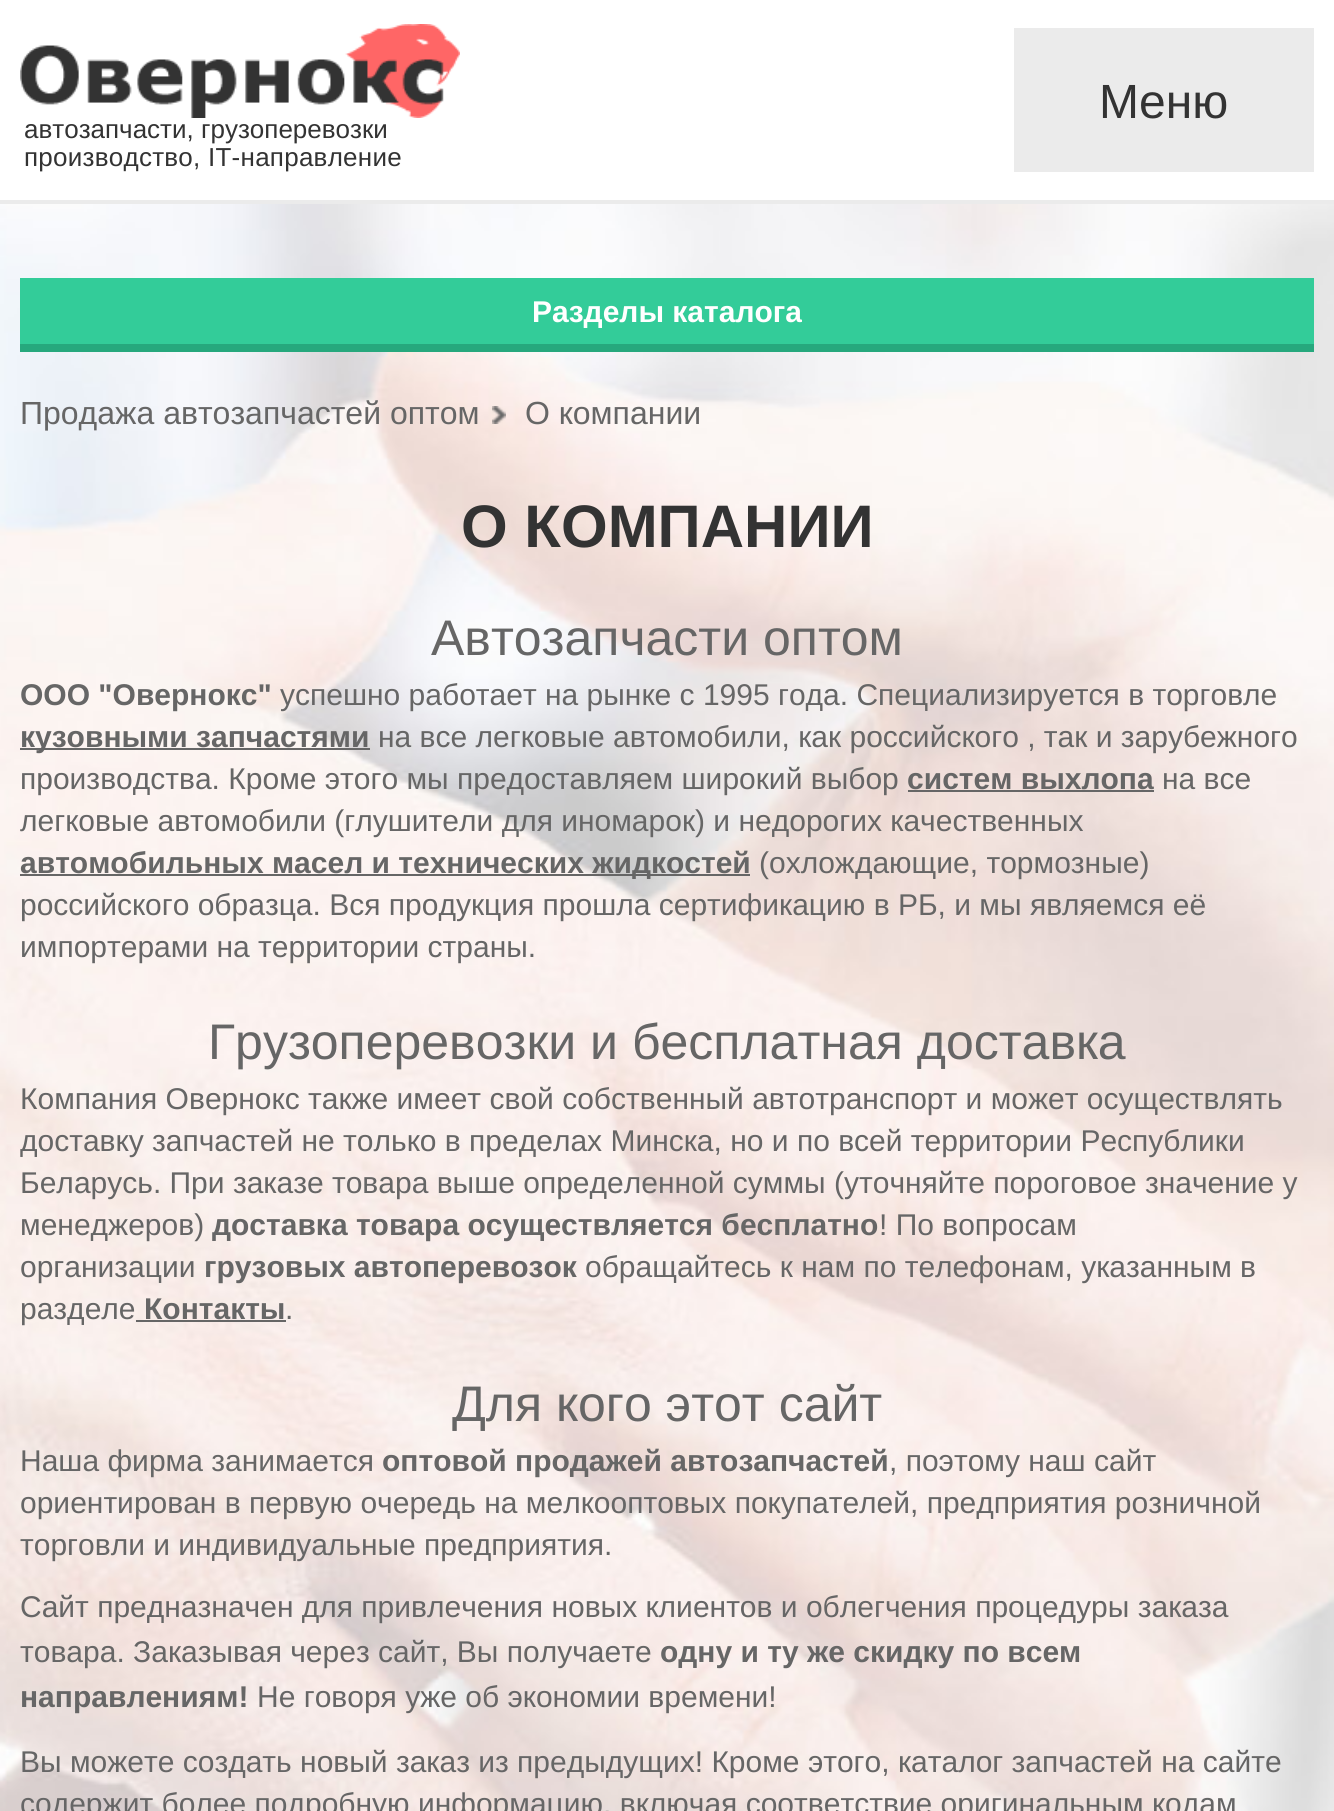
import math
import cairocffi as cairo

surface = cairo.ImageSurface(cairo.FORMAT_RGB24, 1334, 1811)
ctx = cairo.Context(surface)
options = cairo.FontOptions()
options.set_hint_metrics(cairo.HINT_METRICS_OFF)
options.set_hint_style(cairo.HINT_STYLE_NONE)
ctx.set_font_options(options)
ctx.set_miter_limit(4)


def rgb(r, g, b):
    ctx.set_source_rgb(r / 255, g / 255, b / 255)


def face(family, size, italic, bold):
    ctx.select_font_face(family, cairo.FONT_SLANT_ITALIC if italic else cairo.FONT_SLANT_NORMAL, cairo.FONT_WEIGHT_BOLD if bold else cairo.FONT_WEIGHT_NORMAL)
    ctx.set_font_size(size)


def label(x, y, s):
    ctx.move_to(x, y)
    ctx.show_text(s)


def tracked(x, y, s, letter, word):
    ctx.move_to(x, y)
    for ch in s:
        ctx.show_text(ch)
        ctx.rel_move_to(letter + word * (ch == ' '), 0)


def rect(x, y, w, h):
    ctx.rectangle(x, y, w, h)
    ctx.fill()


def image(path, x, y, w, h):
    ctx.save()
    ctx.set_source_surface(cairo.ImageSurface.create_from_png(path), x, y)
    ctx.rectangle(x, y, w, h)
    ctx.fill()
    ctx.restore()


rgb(255, 255, 255)
ctx.paint()
rgb(235, 235, 235)
rect(0, 200, 1334, 4)
rect(1014, 28, 300, 144)
face('Liberation Sans', 48, 0, 0)
rgb(51, 51, 51)
label(1099, 118, 'Меню')
image('image0.png', 20, 24, 440, 94)
face('Liberation Sans', 26, 0, 0)
label(24, 138, 'автозапчасти, грузоперевозки')
tracked(24, 166, 'производство, IT-направление', 0.25, 0)
image('image1.png', 0, 204, 1334, 1607)
rgb(51, 204, 153)
rect(20, 278, 1294, 66)
rgb(38, 168, 125)
rect(20, 344, 1294, 8)
face('Liberation Sans', 30, 0, 1)
rgb(255, 255, 255)
label(532, 322, 'Разделы каталога')
face('Liberation Sans', 32, 0, 0)
rgb(102, 102, 102)
label(20, 424, 'Продажа автозапчастей оптом')
image('image2.png', 492, 406, 14, 18)
label(525, 424, 'О компании')
face('Liberation Sans', 60, 0, 1)
rgb(51, 51, 51)
label(461, 547, 'О КОМПАНИИ')
face('Liberation Sans', 50, 0, 0)
rgb(102, 102, 102)
label(431, 655, 'Автозапчасти оптом')
face('Liberation Sans', 30, 0, 1)
label(20, 705, 'ООО "Овернокс"')
face('Liberation Sans', 30, 0, 0)
label(280, 705, 'успешно работает на рынке с 1995 года. Специализируется в торговле')
rect(20, 748, 350, 2)
face('Liberation Sans', 30, 0, 1)
label(20, 747, 'кузовными запчастями')
face('Liberation Sans', 30, 0, 0)
label(378, 747, 'на все легковые автомобили, как российского , так и зарубежного')
label(20, 789, 'производства. Кроме этого мы предоставляем широкий выбор')
face('Liberation Sans', 30, 0, 1)
label(907, 789, 'систем выхлопа')
rect(908, 790, 246, 2)
face('Liberation Sans', 30, 0, 0)
label(1162, 789, 'на все')
label(20, 831, 'легковые автомобили (глушители для иномарок) и недорогих качественных')
rect(20, 874, 730, 2)
face('Liberation Sans', 30, 0, 1)
label(20, 873, 'автомобильных масел и технических жидкостей')
face('Liberation Sans', 30, 0, 0)
label(759, 873, '(охлождающие, тормозные)')
label(20, 915, 'российского образца. Вся продукция прошла сертификацию в РБ, и мы являемся её')
label(20, 957, 'импортерами на территории страны.')
face('Liberation Sans', 50, 0, 0)
label(208, 1059, 'Грузоперевозки и бесплатная доставка')
face('Liberation Sans', 30, 0, 0)
label(20, 1109, 'Компания Овернокс также имеет свой собственный автотранспорт и может осуществлять')
label(20, 1151, 'доставку запчастей не только в пределах Минска, но и по всей территории Республики')
label(20, 1193, 'Беларусь. При заказе товара выше определенной суммы (уточняйте пороговое значение у')
label(20, 1235, 'менеджеров)')
face('Liberation Sans', 30, 0, 1)
label(212, 1235, 'доставка товара осуществляется бесплатно')
face('Liberation Sans', 30, 0, 0)
label(879, 1235, '! По вопросам')
label(20, 1277, 'организации')
face('Liberation Sans', 30, 0, 1)
label(204, 1277, 'грузовых автоперевозок')
face('Liberation Sans', 30, 0, 0)
label(585, 1277, 'обращайтесь к нам по телефонам, указанным в')
label(20, 1319, 'разделе')
face('Liberation Sans', 30, 0, 1)
label(144, 1319, 'Контакты')
rect(136, 1320, 150, 2)
face('Liberation Sans', 30, 0, 0)
label(285, 1319, '.')
face('Liberation Sans', 50, 0, 0)
label(452, 1421, 'Для кого этот сайт')
face('Liberation Sans', 30, 0, 0)
label(20, 1471, 'Наша фирма занимается')
face('Liberation Sans', 30, 0, 1)
label(382, 1471, 'оптовой продажей автозапчастей')
face('Liberation Sans', 30, 0, 0)
label(889, 1471, ', поэтому наш сайт')
label(20, 1513, 'ориентирован в первую очередь на мелкооптовых покупателей, предприятия розничной')
label(20, 1555, 'торговли и индивидуальные предприятия.')
label(20, 1617, 'Сайт предназначен для привлечения новых клиентов и облегчения процедуры заказа')
label(20, 1662, 'товара. Заказывая через сайт, Вы получаете')
face('Liberation Sans', 30, 0, 1)
label(660, 1662, 'одну и ту же скидку по всем')
label(20, 1707, 'направлениям!')
face('Liberation Sans', 30, 0, 0)
label(257, 1707, 'Не говоря уже об экономии времени!')
label(20, 1772, 'Вы можете создать новый заказ из предыдущих! Кроме этого, каталог запчастей на сайте')
label(20, 1814, 'содержит более подробную информацию, включая соответствие оригинальным кодам')
surface.write_to_png('render.png')
